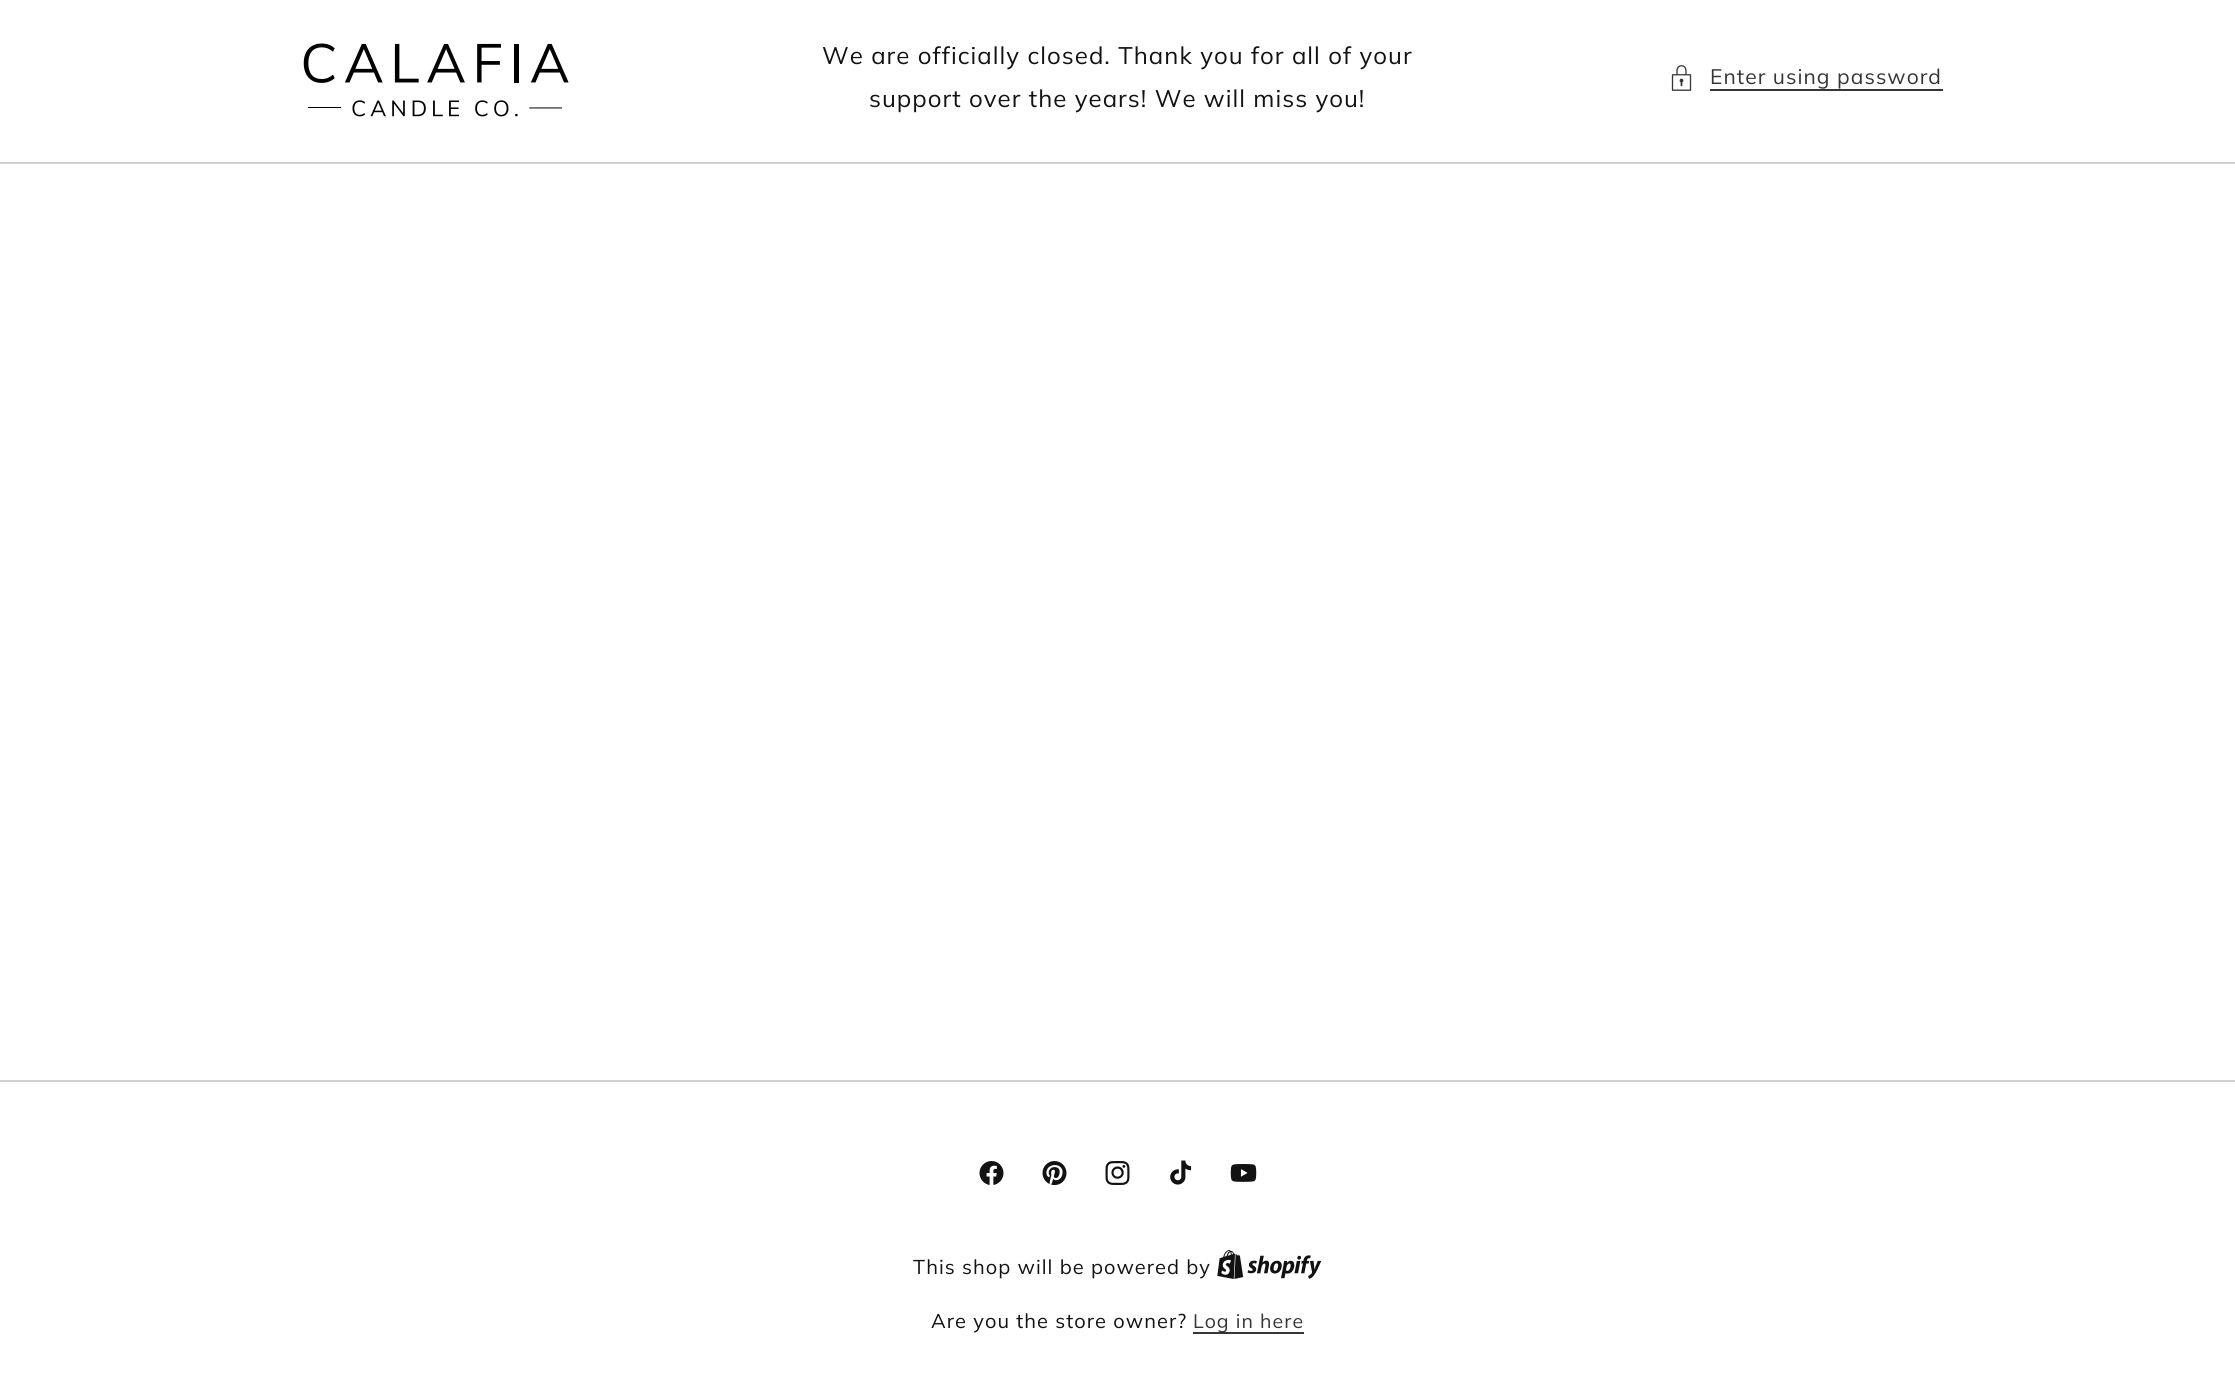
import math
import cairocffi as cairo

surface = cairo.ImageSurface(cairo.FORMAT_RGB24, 2235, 1399)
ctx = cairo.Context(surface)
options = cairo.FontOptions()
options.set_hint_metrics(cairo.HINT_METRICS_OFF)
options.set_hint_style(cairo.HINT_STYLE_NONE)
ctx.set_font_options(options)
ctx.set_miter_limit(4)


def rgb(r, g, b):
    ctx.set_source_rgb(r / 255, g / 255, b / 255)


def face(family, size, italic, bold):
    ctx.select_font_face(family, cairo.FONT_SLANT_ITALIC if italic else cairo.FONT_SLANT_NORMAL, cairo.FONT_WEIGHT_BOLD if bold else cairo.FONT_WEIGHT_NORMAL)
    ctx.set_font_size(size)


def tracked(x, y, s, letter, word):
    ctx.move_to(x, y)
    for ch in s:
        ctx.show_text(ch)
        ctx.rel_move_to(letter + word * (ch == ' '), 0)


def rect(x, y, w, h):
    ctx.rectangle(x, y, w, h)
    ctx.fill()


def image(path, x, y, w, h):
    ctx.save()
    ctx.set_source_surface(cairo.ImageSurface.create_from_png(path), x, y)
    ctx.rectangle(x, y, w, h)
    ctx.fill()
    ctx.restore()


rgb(255, 255, 255)
ctx.paint()
image('image0.png', 303, 43, 266, 74)
face('Muli', 24, 0, 0)
rgb(18, 18, 18)
tracked(822, 64, 'We are officially closed. Thank you for all of your', 1.05, 0)
tracked(869, 107, 'support over the years! We will miss you!', 1.05, 0)
image('image1.png', 1671, 65, 21, 26)
face('Muli', 21, 0, 0)
rgb(53, 53, 53)
tracked(1710, 84, 'Enter using password', 1.05, 0)
rgb(54, 54, 54)
rect(1710, 89, 233, 2)
rgb(208, 208, 208)
rect(0, 162, 2235, 2)
rect(0, 1080, 2235, 2)
image('image2.png', 979, 1161, 25, 24)
image('image3.png', 1042, 1161, 25, 25)
image('image4.png', 1105, 1161, 25, 24)
image('image5.png', 1170, 1160, 22, 25)
image('image6.png', 1230, 1164, 27, 18)
face('Muli', 20, 0, 0)
rgb(18, 18, 18)
tracked(913, 1274, 'This shop will be powered by', 1.05, 0)
image('image7.png', 1217, 1250, 105, 29)
tracked(931, 1328, 'Are you the store owner?', 1.05, 0)
rgb(54, 54, 54)
rect(1193, 1332, 111, 2)
face('Muli', 19.5, 0, 0)
rgb(53, 53, 53)
tracked(1193, 1328, 'Log in here', 1.05, 0)
surface.write_to_png('render.png')
